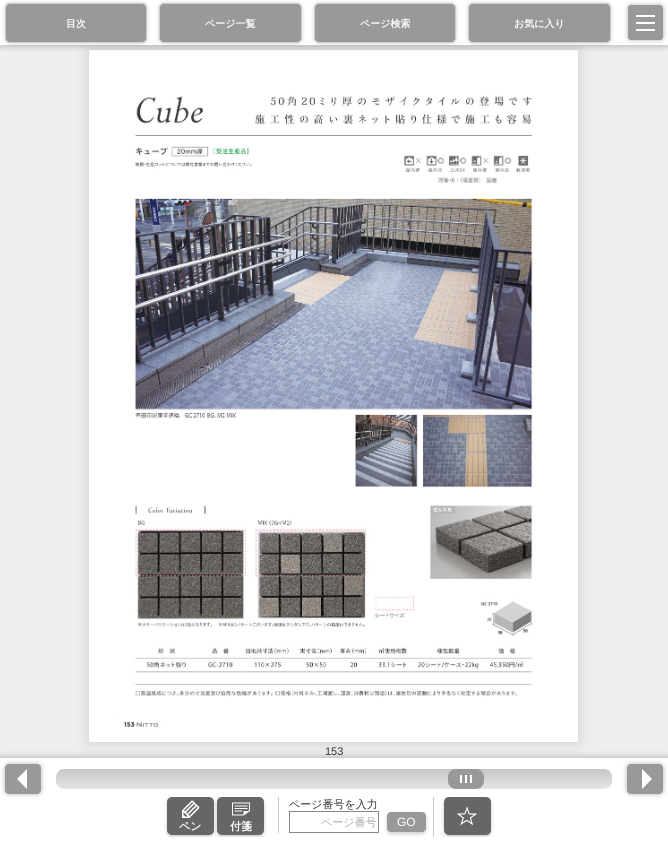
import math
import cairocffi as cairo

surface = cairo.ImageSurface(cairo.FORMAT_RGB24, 668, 842)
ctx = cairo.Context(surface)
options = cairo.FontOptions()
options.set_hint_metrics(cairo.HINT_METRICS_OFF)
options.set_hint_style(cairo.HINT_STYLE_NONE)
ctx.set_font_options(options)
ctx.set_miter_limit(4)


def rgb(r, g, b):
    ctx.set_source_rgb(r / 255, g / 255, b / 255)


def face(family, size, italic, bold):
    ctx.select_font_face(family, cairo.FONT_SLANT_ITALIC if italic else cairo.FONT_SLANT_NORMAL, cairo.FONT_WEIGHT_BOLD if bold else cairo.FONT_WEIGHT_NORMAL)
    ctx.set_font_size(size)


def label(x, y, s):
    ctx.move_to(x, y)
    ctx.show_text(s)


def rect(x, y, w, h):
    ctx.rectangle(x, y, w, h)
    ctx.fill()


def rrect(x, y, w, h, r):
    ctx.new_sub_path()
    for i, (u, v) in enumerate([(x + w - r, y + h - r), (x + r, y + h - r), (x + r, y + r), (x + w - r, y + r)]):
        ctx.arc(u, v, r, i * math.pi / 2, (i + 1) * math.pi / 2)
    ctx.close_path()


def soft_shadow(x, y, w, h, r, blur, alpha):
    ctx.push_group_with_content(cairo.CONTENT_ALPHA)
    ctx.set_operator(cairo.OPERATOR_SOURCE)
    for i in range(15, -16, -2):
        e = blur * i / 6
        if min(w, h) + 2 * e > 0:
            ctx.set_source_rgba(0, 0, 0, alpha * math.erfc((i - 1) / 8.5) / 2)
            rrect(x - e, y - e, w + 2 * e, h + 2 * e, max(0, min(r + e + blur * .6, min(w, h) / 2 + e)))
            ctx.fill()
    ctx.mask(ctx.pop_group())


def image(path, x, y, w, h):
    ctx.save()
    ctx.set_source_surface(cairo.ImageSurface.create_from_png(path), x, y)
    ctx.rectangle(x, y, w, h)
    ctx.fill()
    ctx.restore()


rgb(239, 238, 240)
ctx.paint()
rgb(204, 204, 204)
soft_shadow(89, 50, 489, 692, 0, 7.5, 1)
image('image0.png', 89, 50, 489, 692)
rgb(0, 0, 0)
soft_shadow(0, 2, 668, 45, 0, 3, 0.2)
rgb(255, 255, 255)
rect(0, 0, 668, 45)
rgb(0, 0, 0)
soft_shadow(628, 5, 35, 35, 3, 2.5, 0.3)
rgb(153, 153, 153)
rrect(628, 5, 35, 35, 3)
ctx.fill()
rgb(255, 255, 255)
rect(636, 15, 19, 2)
rect(636, 22, 19, 2)
rect(636, 29, 19, 2)
rgb(0, 0, 0)
soft_shadow(5, 3, 142, 40, 5, 2, 0.2)
rgb(153, 153, 153)
rrect(5.5, 3.5, 141, 39, 4.5)
ctx.fill_preserve()
rgb(204, 204, 204)
ctx.set_line_width(1)
ctx.stroke()
face('WenQuanYi Zen Hei', 10, 0, 1)
rgb(255, 255, 255)
label(66, 27, '目次')
rgb(0, 0, 0)
soft_shadow(159, 3, 143, 40, 5, 2, 0.2)
rgb(153, 153, 153)
rrect(159.5, 3.5, 142, 39, 4.5)
ctx.fill_preserve()
rgb(204, 204, 204)
ctx.stroke()
rgb(255, 255, 255)
label(205, 27, 'ページ一覧')
rgb(0, 0, 0)
soft_shadow(314, 3, 142, 40, 5, 2, 0.2)
rgb(153, 153, 153)
rrect(314.5, 3.5, 141, 39, 4.5)
ctx.fill_preserve()
rgb(204, 204, 204)
ctx.stroke()
rgb(255, 255, 255)
label(360, 27, 'ページ検索')
rgb(0, 0, 0)
soft_shadow(468, 3, 143, 40, 5, 2, 0.2)
rgb(153, 153, 153)
rrect(468.5, 3.5, 142, 39, 4.5)
ctx.fill_preserve()
rgb(204, 204, 204)
ctx.stroke()
rgb(255, 255, 255)
label(514, 27, 'お気に入り')
image('image1.png', 119, 89, 420, 645)
face('Liberation Sans', 11, 0, 0)
rgb(51, 51, 51)
label(325, 755, '153')
rgb(0, 0, 0)
soft_shadow(0, 756, 668, 84, 0, 3, 0.2)
rgb(255, 255, 255)
rect(0, 758, 668, 84)
rgb(0, 0, 0)
soft_shadow(5, 764, 36, 30, 4, 2.5, 0.3)
rgb(153, 153, 153)
rrect(5, 764, 36, 30, 4)
ctx.fill()
rgb(255, 255, 255)
ctx.new_path()
ctx.move_to(27, 769)
ctx.line_to(27, 789)
ctx.line_to(17, 779)
ctx.close_path()
ctx.fill()
rgb(0, 0, 0)
soft_shadow(627, 764, 36, 30, 4, 2.5, 0.3)
rgb(153, 153, 153)
rrect(627, 764, 36, 30, 4)
ctx.fill()
rgb(255, 255, 255)
ctx.new_path()
ctx.move_to(642, 789)
ctx.line_to(642, 769)
ctx.line_to(652, 779)
ctx.close_path()
ctx.fill()
gradient = cairo.LinearGradient(334, 769, 334, 789)
gradient.add_color_stop_rgba(0, 0.776, 0.776, 0.776, 1)
gradient.add_color_stop_rgba(1, 0.902, 0.902, 0.902, 1)
ctx.set_source(gradient)
rrect(56, 769, 556, 20, 8)
ctx.fill()
rgb(153, 153, 153)
rrect(448, 769, 36, 20, 8)
ctx.fill()
rgb(255, 255, 255)
rect(470, 775, 2, 8)
rect(460, 775, 2, 8)
rect(465, 775, 2, 8)
ctx.save()
ctx.rectangle(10, 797, 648, 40)
ctx.clip()
rgb(0, 0, 0)
soft_shadow(167, 799, 47, 38, 5, 2, 0.2)
ctx.restore()
rgb(102, 102, 102)
rrect(167, 797, 47, 38, 5)
ctx.fill()
image('image2.png', 182, 800, 18, 18)
face('WenQuanYi Zen Hei', 11, 0, 1)
rgb(255, 255, 255)
label(179, 830, 'ペン')
ctx.save()
ctx.rectangle(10, 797, 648, 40)
ctx.clip()
rgb(0, 0, 0)
soft_shadow(217, 799, 47, 38, 5, 2, 0.2)
ctx.restore()
rgb(102, 102, 102)
rrect(217, 797, 47, 38, 5)
ctx.fill()
image('image3.png', 232, 802, 18, 14)
rgb(255, 255, 255)
label(230, 830, '付箋')
rgb(204, 204, 204)
rect(278, 797, 1, 36)
face('WenQuanYi Zen Hei Medium', 11, 0, 0)
rgb(51, 51, 51)
label(289, 808, 'ページ番号を入力')
ctx.rectangle(289.5, 811.5, 89, 21)
rgb(136, 136, 136)
ctx.stroke()
rgb(170, 170, 170)
label(321, 826, 'ページ番号')
rgb(0, 0, 0)
soft_shadow(387, 814, 39, 20, 4, 2, 0.2)
rgb(153, 153, 153)
rrect(387, 812, 39, 20, 4)
ctx.fill()
face('Liberation Sans', 12, 0, 0)
rgb(255, 255, 255)
label(397, 826, 'GO')
rgb(204, 204, 204)
rect(433, 797, 1, 40)
ctx.save()
ctx.rectangle(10, 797, 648, 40)
ctx.clip()
rgb(0, 0, 0)
soft_shadow(444, 799, 47, 38, 5, 2, 0.2)
ctx.restore()
rgb(102, 102, 102)
rrect(444, 797, 47, 38, 5)
ctx.fill()
image('image4.png', 457, 806, 20, 20)
surface.write_to_png('render.png')
